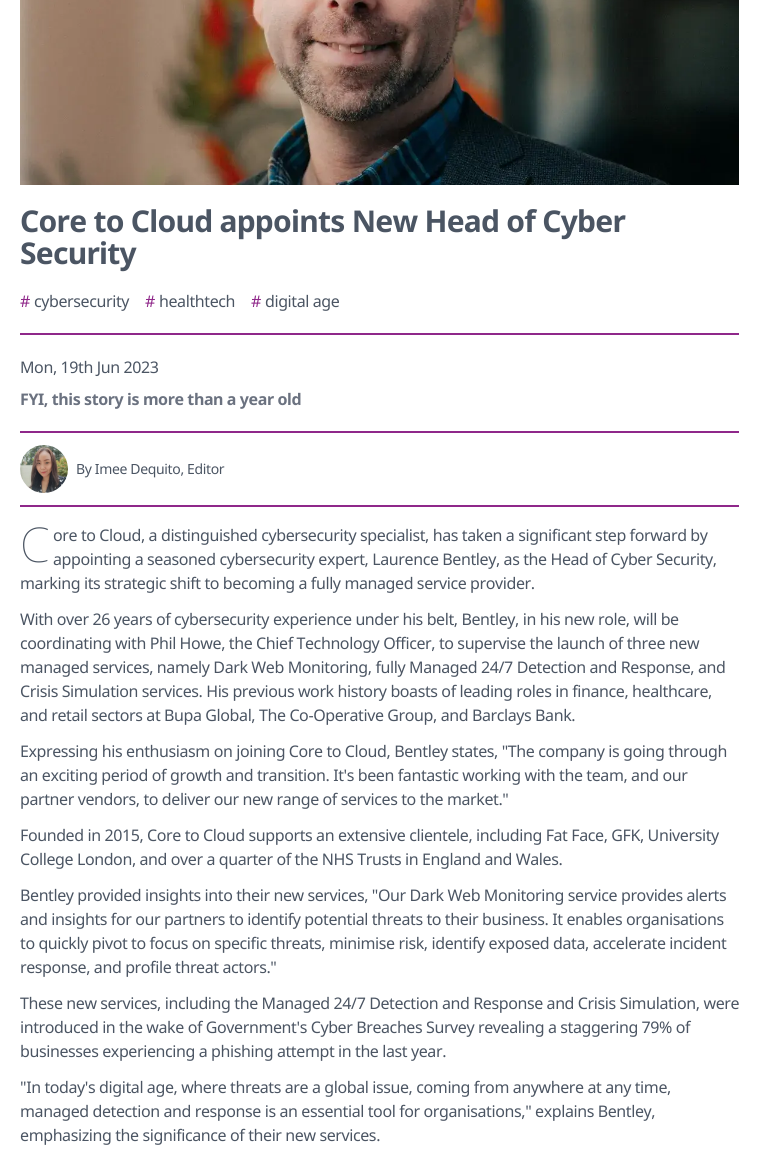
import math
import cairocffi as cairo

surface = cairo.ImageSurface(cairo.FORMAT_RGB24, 759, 1163)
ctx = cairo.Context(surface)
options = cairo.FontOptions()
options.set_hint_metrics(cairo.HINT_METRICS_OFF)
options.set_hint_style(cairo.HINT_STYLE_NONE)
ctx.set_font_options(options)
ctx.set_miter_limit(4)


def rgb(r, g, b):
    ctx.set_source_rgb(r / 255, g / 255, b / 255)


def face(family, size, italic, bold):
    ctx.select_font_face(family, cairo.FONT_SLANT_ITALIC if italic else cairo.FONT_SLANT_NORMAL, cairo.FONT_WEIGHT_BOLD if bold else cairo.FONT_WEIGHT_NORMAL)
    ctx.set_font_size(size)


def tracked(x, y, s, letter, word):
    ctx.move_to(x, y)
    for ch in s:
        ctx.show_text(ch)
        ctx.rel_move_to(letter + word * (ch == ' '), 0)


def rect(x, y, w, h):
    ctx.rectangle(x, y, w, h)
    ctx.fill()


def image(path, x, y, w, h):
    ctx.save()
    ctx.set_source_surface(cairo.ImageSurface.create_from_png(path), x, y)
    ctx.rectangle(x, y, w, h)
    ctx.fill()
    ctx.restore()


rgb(255, 255, 255)
ctx.paint()
image('image0.png', 20, 0, 719, 185)
face('Noto Sans', 30, 0, 1)
rgb(75, 85, 99)
tracked(20, 232, 'Core to Cloud appoints New Head of Cyber', -0.75, 0)
tracked(20, 264, 'Security', -0.75, 0)
face('Noto Sans', 16, 0, 0)
rgb(143, 40, 138)
tracked(20, 307, '#', -0.4, 0)
rgb(75, 85, 99)
tracked(34, 307, 'cybersecurity', -0.4, 0)
rgb(143, 40, 138)
tracked(145, 307, '#', -0.4, 0)
rgb(75, 85, 99)
tracked(159, 307, 'healthtech', -0.4, 0)
rgb(143, 40, 138)
tracked(251, 307, '#', -0.4, 0)
rgb(75, 85, 99)
tracked(265, 307, 'digital age', -0.4, 0)
rgb(143, 40, 138)
rect(20, 333, 719, 2)
rgb(75, 85, 99)
tracked(20, 373, 'Mon, 19th Jun 2023', -0.4, 0)
face('Noto Sans', 16, 0, 1)
rgb(107, 114, 128)
tracked(20, 405, 'FYI, this story is more than a year old', -0.4, 0)
rgb(143, 40, 138)
rect(20, 431, 719, 2)
rect(20, 505, 719, 2)
image('image1.png', 20, 445, 48, 48)
face('Noto Sans', 14, 0, 0)
rgb(75, 85, 99)
tracked(76, 474, 'By Imee Dequito, Editor', -0.35, 0)
face('Noto Sans Thin', 48, 0, 0)
tracked(20, 562, 'C', -0.4, 0)
face('Noto Sans', 16, 0, 0)
tracked(53, 541, 'ore to Cloud, a distinguished cybersecurity specialist, has taken a significant step forward by', -0.4, 0)
tracked(53, 565, 'appointing a seasoned cybersecurity expert, Laurence Bentley, as the Head of Cyber Security,', -0.4, 0)
tracked(20, 589, 'marking its strategic shift to becoming a fully managed service provider.', -0.4, 0)
tracked(20, 625, 'With over 26 years of cybersecurity experience under his belt, Bentley, in his new role, will be', -0.4, 0)
tracked(20, 649, 'coordinating with Phil Howe, the Chief Technology Officer, to supervise the launch of three new', -0.4, 0)
tracked(20, 673, 'managed services, namely Dark Web Monitoring, fully Managed 24/7 Detection and Response, and', -0.4, 0)
tracked(20, 697, 'Crisis Simulation services. His previous work history boasts of leading roles in finance, healthcare,', -0.4, 0)
tracked(20, 721, 'and retail sectors at Bupa Global, The Co-Operative Group, and Barclays Bank.', -0.4, 0)
tracked(20, 757, 'Expressing his enthusiasm on joining Core to Cloud, Bentley states, "The company is going through', -0.4, 0)
tracked(20, 781, 'an exciting period of growth and transition. It\'s been fantastic working with the team, and our', -0.4, 0)
tracked(20, 805, 'partner vendors, to deliver our new range of services to the market."', -0.4, 0)
tracked(20, 841, 'Founded in 2015, Core to Cloud supports an extensive clientele, including Fat Face, GFK, University', -0.4, 0)
tracked(20, 865, 'College London, and over a quarter of the NHS Trusts in England and Wales.', -0.4, 0)
tracked(20, 901, 'Bentley provided insights into their new services, "Our Dark Web Monitoring service provides alerts', -0.4, 0)
tracked(20, 925, 'and insights for our partners to identify potential threats to their business. It enables organisations', -0.4, 0)
tracked(20, 949, 'to quickly pivot to focus on specific threats, minimise risk, identify exposed data, accelerate incident', -0.4, 0)
tracked(20, 973, 'response, and profile threat actors."', -0.4, 0)
tracked(20, 1009, 'These new services, including the Managed 24/7 Detection and Response and Crisis Simulation, were', -0.4, 0)
tracked(20, 1033, 'introduced in the wake of Government\'s Cyber Breaches Survey revealing a staggering 79% of', -0.4, 0)
tracked(20, 1057, 'businesses experiencing a phishing attempt in the last year.', -0.4, 0)
tracked(20, 1093, '"In today\'s digital age, where threats are a global issue, coming from anywhere at any time,', -0.4, 0)
tracked(20, 1117, 'managed detection and response is an essential tool for organisations," explains Bentley,', -0.4, 0)
tracked(20, 1141, 'emphasizing the significance of their new services.', -0.4, 0)
surface.write_to_png('render.png')
